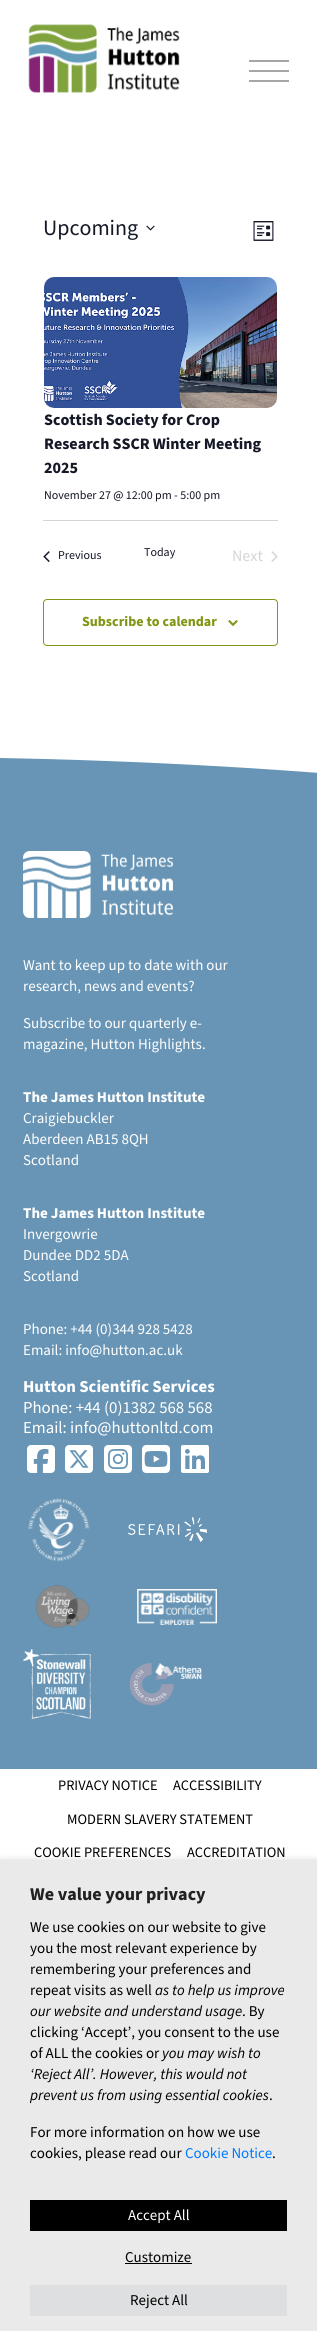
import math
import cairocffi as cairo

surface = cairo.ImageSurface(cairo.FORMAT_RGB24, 317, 2331)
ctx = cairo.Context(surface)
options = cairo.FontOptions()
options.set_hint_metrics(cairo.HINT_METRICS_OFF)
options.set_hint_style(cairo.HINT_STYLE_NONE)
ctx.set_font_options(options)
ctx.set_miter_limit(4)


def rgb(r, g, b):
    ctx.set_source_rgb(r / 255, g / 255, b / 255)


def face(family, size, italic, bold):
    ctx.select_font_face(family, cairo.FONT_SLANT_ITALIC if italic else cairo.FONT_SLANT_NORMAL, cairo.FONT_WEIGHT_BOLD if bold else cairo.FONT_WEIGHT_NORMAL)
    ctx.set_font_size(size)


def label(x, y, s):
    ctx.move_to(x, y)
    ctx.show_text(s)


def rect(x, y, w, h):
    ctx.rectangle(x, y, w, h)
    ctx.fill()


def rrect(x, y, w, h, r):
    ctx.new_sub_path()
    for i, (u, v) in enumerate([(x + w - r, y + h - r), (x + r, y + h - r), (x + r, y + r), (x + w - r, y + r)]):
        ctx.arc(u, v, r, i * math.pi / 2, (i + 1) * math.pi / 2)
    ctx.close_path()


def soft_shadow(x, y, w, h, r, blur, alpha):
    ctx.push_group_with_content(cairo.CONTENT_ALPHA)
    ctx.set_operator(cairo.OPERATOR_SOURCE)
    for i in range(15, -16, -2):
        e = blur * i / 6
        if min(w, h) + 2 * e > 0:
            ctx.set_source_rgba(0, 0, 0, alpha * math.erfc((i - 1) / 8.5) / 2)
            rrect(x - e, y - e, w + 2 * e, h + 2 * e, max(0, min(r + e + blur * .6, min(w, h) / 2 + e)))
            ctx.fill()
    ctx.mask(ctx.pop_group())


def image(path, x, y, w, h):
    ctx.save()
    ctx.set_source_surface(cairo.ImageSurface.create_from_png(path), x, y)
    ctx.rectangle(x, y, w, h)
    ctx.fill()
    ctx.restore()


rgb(255, 255, 255)
ctx.paint()
image('image0.png', 28, 24, 152, 69)
rgb(166, 166, 166)
rect(249, 70, 40, 2)
rect(249, 60, 40, 2)
rect(249, 80, 40, 2)
face('Source Sans Pro', 22, 0, 0)
rgb(20, 24, 39)
label(43, 235, 'Upcoming')
image('image1.png', 146, 225, 9, 6)
image('image2.png', 253, 221, 21, 20)
image('image3.png', 44, 277, 233, 131)
face('Source Sans Pro', 16, 0, 1)
label(44, 425, 'Scottish Society for Crop')
label(44, 449, 'Research SSCR Winter Meeting')
label(44, 473, '2025')
face('Source Sans Pro', 12, 0, 0)
label(44, 499, 'November 27 @ 12:00 pm - 5:00 pm')
rgb(213, 213, 213)
rect(43, 520, 235, 1)
image('image4.png', 43, 551, 7, 11)
rgb(20, 24, 39)
label(58, 559, 'Previous')
label(144, 556, 'Today')
face('Source Sans Pro', 16, 0, 0)
rgb(213, 213, 213)
label(232, 561, 'Next')
image('image5.png', 271, 551, 7, 11)
rrect(43.5, 599.5, 234, 46, 3.5)
rgb(128, 150, 21)
ctx.set_line_width(1)
ctx.stroke()
face('Source Sans Pro', 14, 0, 1)
label(82, 626, 'Subscribe to calendar')
image('image6.png', 228, 620, 10, 6)
rgb(104, 149, 181)
ctx.new_path()
ctx.move_to(0, 758)
ctx.curve_to(108, 760, 214, 765, 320, 773)
ctx.line_to(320, 1769)
ctx.line_to(0, 1769)
ctx.close_path()
ctx.fill()
image('image7.png', 23, 851, 150, 67)
face('Source Sans Pro', 15, 0, 0)
rgb(255, 255, 255)
label(23, 970, 'Want to keep up to date with our')
label(23, 991, 'research, news and events?')
label(23, 1028, 'Subscribe to our quarterly e-')
label(23, 1049, 'magazine, Hutton Highlights.')
face('Source Sans Pro', 15, 0, 1)
label(23, 1102, 'The James Hutton Institute')
face('Source Sans Pro', 15, 0, 0)
label(23, 1123, 'Craigiebuckler')
label(23, 1144, 'Aberdeen AB15 8QH')
label(23, 1165, 'Scotland')
face('Source Sans Pro', 15, 0, 1)
label(23, 1218, 'The James Hutton Institute')
face('Source Sans Pro', 15, 0, 0)
label(23, 1239, 'Invergowrie')
label(23, 1260, 'Dundee DD2 5DA')
label(23, 1281, 'Scotland')
label(23, 1334, 'Phone: +44 (0)344 928 5428')
label(23, 1355, 'Email: info@hutton.ac.uk')
face('Source Sans Pro', 16.75, 0, 1)
label(23, 1392, 'Hutton Scientific Services')
face('Source Sans Pro', 16.75, 0, 0)
label(23, 1413, 'Phone: +44 (0)1382 568 568')
label(23, 1433, 'Email: info@huttonltd.com')
image('image8.png', 27, 1445, 28, 28)
image('image9.png', 65, 1445, 28, 28)
image('image10.png', 104, 1445, 28, 28)
image('image11.png', 142, 1445, 28, 28)
image('image12.png', 181, 1445, 28, 28)
image('image13.png', 28, 1498, 62, 64)
image('image14.png', 128, 1517, 79, 25)
image('image15.png', 35, 1585, 55, 43)
image('image16.png', 137, 1589, 80, 36)
image('image17.png', 23, 1649, 68, 70)
image('image18.png', 129, 1663, 73, 43)
face('Source Sans Pro', 14.4, 0, 0)
rgb(0, 0, 0)
label(58, 1790, 'PRIVACY NOTICE')
label(173, 1790, 'ACCESSIBILITY')
label(67, 1824, 'MODERN SLAVERY STATEMENT')
label(34, 1857, 'COOKIE PREFERENCES')
label(187, 1857, 'ACCREDITATION')
rgb(0, 0, 0)
soft_shadow(0, 1865, 317, 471, 0, 5, 0.5)
rgb(234, 234, 234)
rect(0, 1860, 317, 471)
face('Source Sans Pro', 18, 0, 1)
rgb(33, 33, 33)
label(30, 1900, 'We value your privacy')
face('Source Sans Pro', 15, 0, 0)
rgb(0, 0, 0)
label(30, 1932, 'We use cookies on our website to give')
label(30, 1953, 'you the most relevant experience by')
label(30, 1974, 'remembering your preferences and')
label(30, 1995, 'repeat visits as well')
face('Source Sans Pro', 15, 1, 0)
label(155, 1995, 'as to help us improve')
label(30, 2016, 'our website and understand usage')
face('Source Sans Pro', 15, 0, 0)
label(242, 2016, '. By')
label(30, 2037, 'clicking ‘Accept’, you consent to the use')
label(30, 2058, 'of ALL the cookies or')
face('Source Sans Pro', 15, 1, 0)
label(162, 2058, 'you may wish to')
label(30, 2079, '‘Reject All’. However, this would not')
label(30, 2100, 'prevent us from using essential cookies')
face('Source Sans Pro', 15, 0, 0)
label(269, 2100, '.')
label(30, 2137, 'For more information on how we use')
label(30, 2158, 'cookies, please read our')
rgb(0, 123, 255)
label(185, 2158, 'Cookie Notice')
rgb(0, 0, 0)
label(272, 2158, '.')
rect(30, 2200, 257, 31)
rgb(255, 255, 255)
label(128, 2220, 'Accept All')
rgb(0, 0, 0)
label(125, 2262, 'Customize')
rect(125, 2263, 67, 1)
rgb(222, 223, 224)
rect(30, 2285, 257, 31)
rgb(0, 0, 0)
label(130, 2305, 'Reject All')
surface.write_to_png('render.png')
